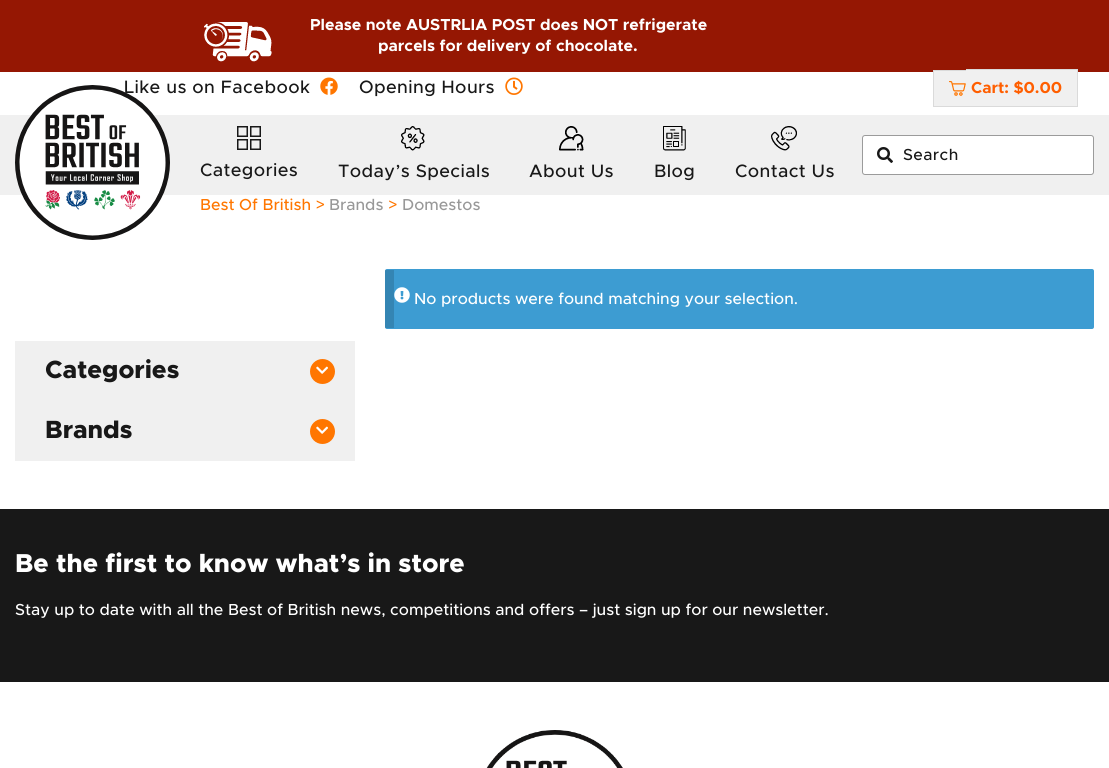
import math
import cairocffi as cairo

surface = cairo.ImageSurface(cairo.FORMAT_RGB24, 1109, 768)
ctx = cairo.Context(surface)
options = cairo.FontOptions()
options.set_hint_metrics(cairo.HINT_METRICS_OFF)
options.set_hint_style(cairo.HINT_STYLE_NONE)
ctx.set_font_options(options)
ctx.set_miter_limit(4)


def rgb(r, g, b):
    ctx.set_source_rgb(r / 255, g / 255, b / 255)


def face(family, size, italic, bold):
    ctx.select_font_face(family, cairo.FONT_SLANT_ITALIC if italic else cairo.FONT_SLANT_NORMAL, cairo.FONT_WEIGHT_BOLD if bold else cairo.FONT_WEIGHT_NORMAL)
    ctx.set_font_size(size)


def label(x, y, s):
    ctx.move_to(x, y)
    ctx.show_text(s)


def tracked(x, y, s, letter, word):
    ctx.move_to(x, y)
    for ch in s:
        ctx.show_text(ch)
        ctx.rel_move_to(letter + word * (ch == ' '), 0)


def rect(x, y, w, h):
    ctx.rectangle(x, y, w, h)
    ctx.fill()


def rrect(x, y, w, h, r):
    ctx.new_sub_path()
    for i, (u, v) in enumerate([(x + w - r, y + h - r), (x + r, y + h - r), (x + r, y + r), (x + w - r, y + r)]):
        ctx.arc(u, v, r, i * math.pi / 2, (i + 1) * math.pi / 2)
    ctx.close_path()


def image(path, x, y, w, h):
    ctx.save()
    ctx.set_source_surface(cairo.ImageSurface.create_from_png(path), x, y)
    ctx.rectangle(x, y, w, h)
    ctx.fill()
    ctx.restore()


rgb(255, 255, 255)
ctx.paint()
rgb(149, 23, 3)
rect(0, 0, 1109, 72)
image('image0.png', 204, 22, 68, 40)
face('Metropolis', 16, 0, 1)
rgb(255, 255, 255)
label(310, 30, 'Please note AUSTRLIA POST does NOT refrigerate')
label(378, 51, 'parcels for delivery of chocolate.')
rgb(240, 240, 240)
rect(0, 115, 1109, 80)
image('image4.png', 15, 85, 155, 155)
face('Metropolis Medium', 18, 0, 0)
rgb(24, 24, 24)
tracked(124, 93, 'Like us on Facebook', 0.4, 0)
image('image1.png', 320, 77, 18, 18)
tracked(359, 93, 'Opening Hours', 0.4, 0)
image('image2.png', 505, 77, 18, 18)
rgb(240, 240, 240)
rect(934, 71, 32, 35)
rgb(218, 218, 218)
rect(933, 70, 33, 1)
rect(933, 106, 90, 1)
rect(933, 70, 1, 37)
rgb(240, 240, 240)
rect(966, 70, 111, 36)
rgb(218, 218, 218)
rect(966, 69, 112, 1)
rect(1077, 69, 1, 38)
rect(1023, 106, 55, 1)
image('image3.png', 949, 81, 17, 15)
face('Metropolis', 16, 0, 1)
rgb(255, 94, 0)
label(971, 93, 'Cart: $0.00')
rgb(255, 255, 255)
rrect(862.5, 135.5, 231, 39, 2.5)
ctx.fill_preserve()
rgb(155, 155, 155)
ctx.set_line_width(1)
ctx.stroke()
image('image5.png', 877, 147, 16, 16)
face('Metropolis Medium', 16, 0, 0)
rgb(24, 24, 24)
tracked(903, 160, 'Search', 0.4, 0)
image('image6.png', 237, 126, 24, 24)
face('Metropolis Medium', 18, 0, 0)
tracked(200, 176, 'Categories', 0.4, 0)
image('image7.png', 401, 126, 24, 25)
tracked(338, 177, 'Today’s Specials', 0.4, 0)
image('image8.png', 559, 126, 25, 25)
tracked(529, 177, 'About Us', 0.4, 0)
image('image9.png', 663, 126, 23, 25)
tracked(654, 177, 'Blog', 0.4, 0)
image('image10.png', 771, 126, 26, 25)
tracked(735, 177, 'Contact Us', 0.4, 0)
face('Metropolis Medium', 16, 0, 0)
rgb(255, 118, 0)
label(200, 210, 'Best Of British >')
rgb(152, 152, 152)
label(329, 210, 'Brands')
rgb(255, 118, 0)
label(388, 210, '>')
rgb(152, 152, 152)
label(402, 210, 'Domestos')
rgb(61, 156, 210)
rrect(385, 269, 709, 60, 2)
ctx.fill()
ctx.set_source_rgba(0, 0, 0, 0.15)
rect(385, 270, 9, 58)
image('image11.png', 394, 287, 16, 16)
rgb(255, 255, 255)
label(414, 304, 'No products were found matching your selection.')
rgb(240, 240, 240)
rect(15, 341, 340, 120)
face('Metropolis ExtraBold', 25, 0, 0)
rgb(24, 24, 24)
label(45, 378, 'Categories')
rgb(255, 118, 0)
ctx.new_path()
ctx.arc(322.5, 371.5, 12.5, 0, 2 * math.pi)
ctx.fill()
image('image12.png', 316, 366, 12, 8)
rgb(24, 24, 24)
label(45, 438, 'Brands')
rgb(255, 118, 0)
ctx.new_path()
ctx.arc(322.5, 431.5, 12.5, 0, 2 * math.pi)
ctx.fill()
image('image12.png', 316, 426, 12, 8)
rgb(24, 24, 24)
rect(0, 509, 1109, 173)
face('Metropolis ExtraBold', 26, 0, 0)
rgb(255, 255, 255)
label(15, 572, 'Be the first to know what’s in store')
face('Metropolis Medium', 16, 0, 0)
label(15, 615, 'Stay up to date with all the Best of British news, competitions and offers – just sign up for our newsletter.')
image('image13.png', 486, 730, 137, 38)
surface.write_to_png('render.png')
